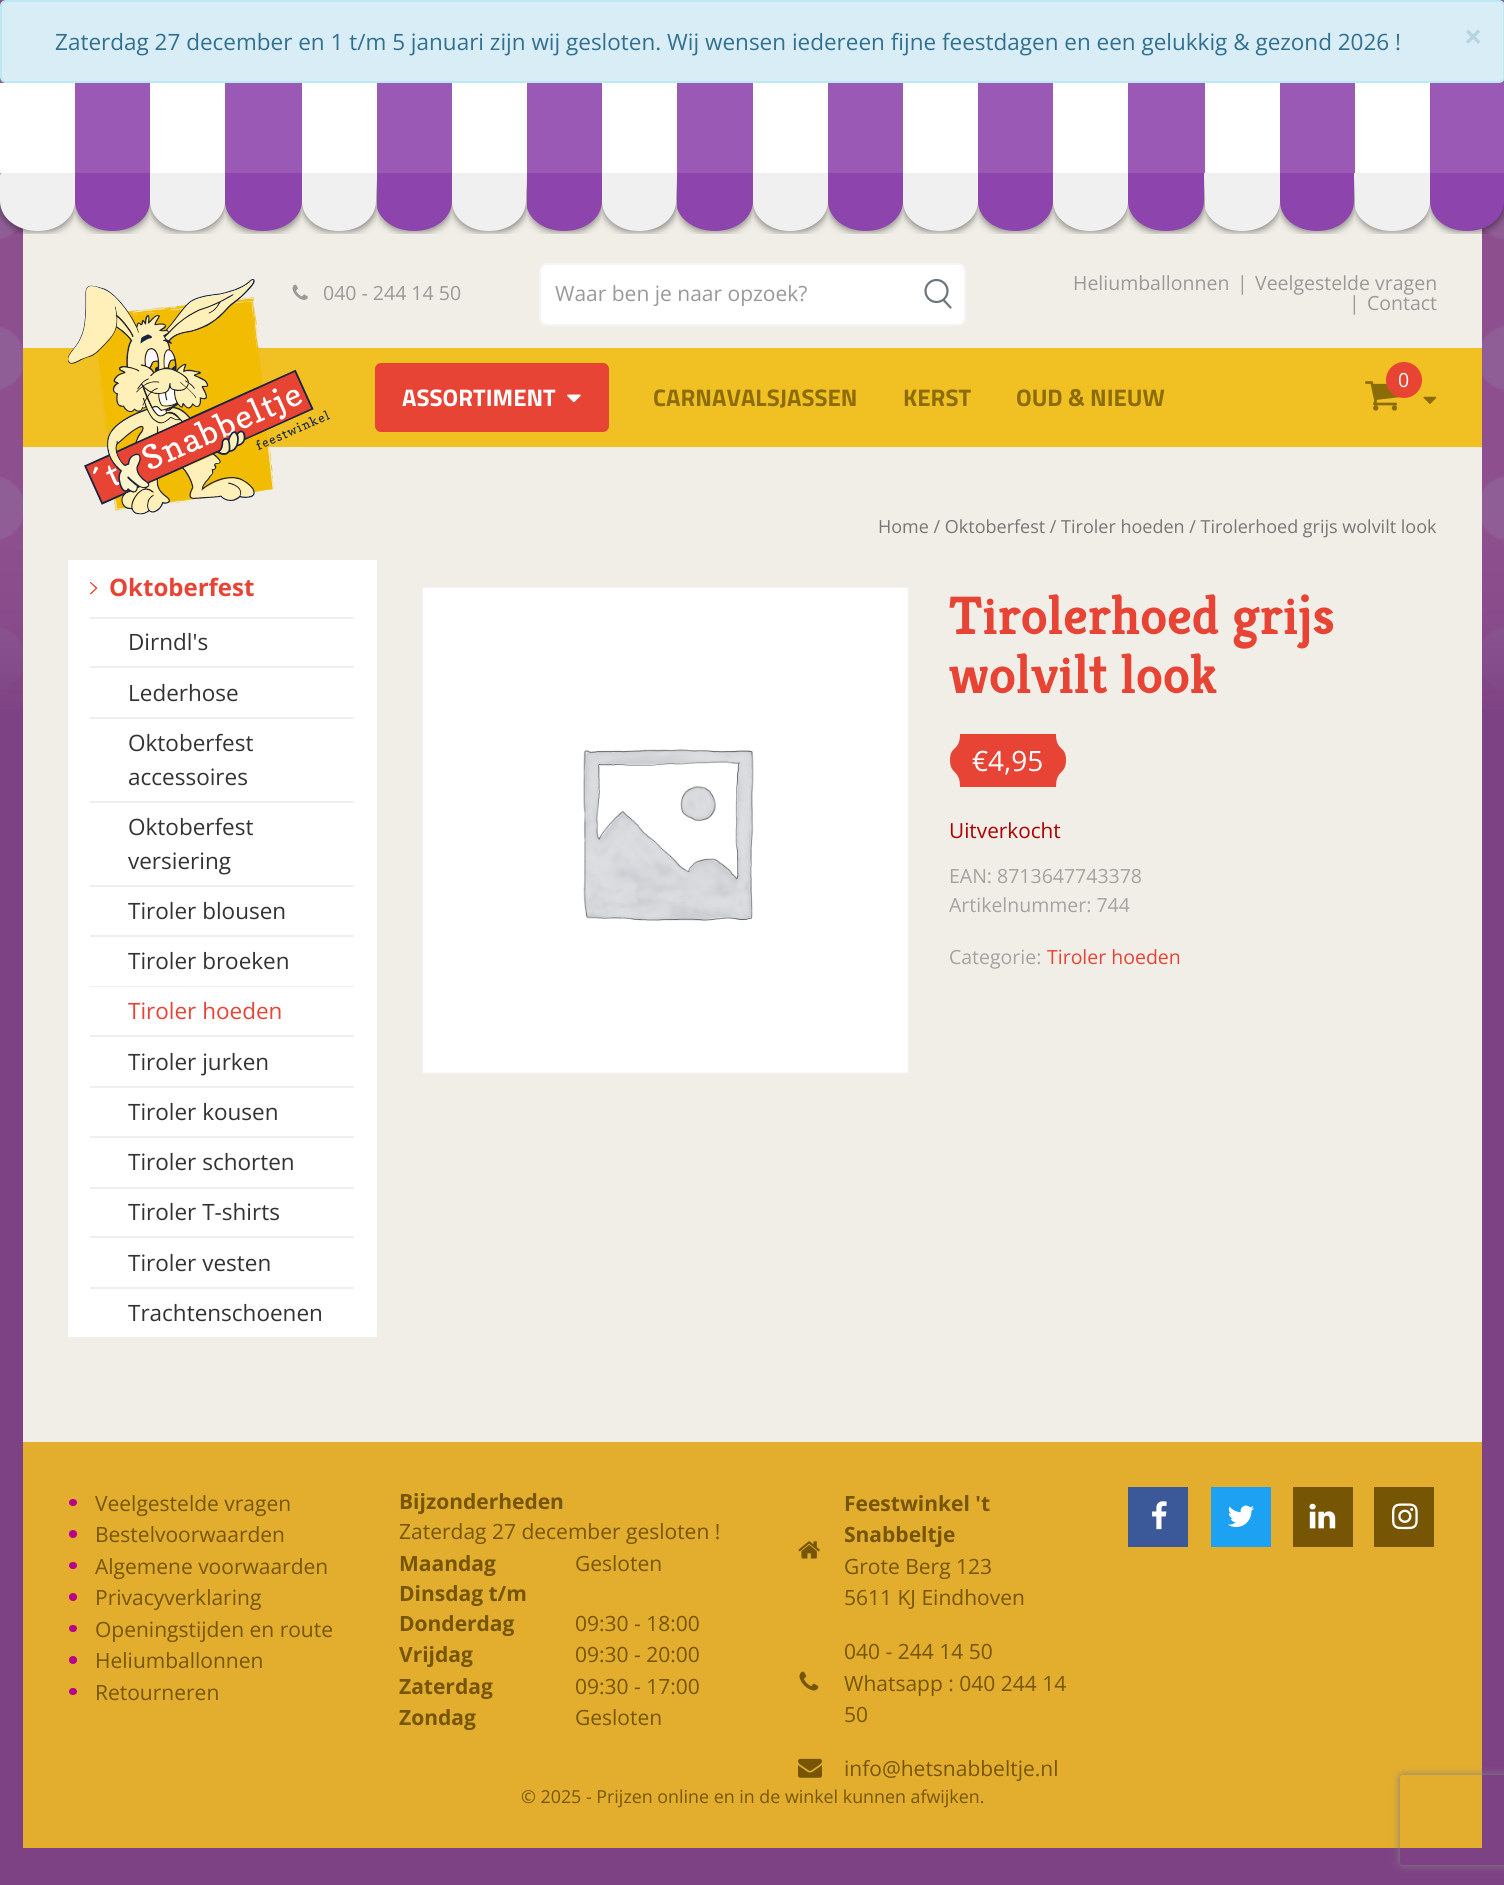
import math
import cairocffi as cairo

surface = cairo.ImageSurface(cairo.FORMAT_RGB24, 1504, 1885)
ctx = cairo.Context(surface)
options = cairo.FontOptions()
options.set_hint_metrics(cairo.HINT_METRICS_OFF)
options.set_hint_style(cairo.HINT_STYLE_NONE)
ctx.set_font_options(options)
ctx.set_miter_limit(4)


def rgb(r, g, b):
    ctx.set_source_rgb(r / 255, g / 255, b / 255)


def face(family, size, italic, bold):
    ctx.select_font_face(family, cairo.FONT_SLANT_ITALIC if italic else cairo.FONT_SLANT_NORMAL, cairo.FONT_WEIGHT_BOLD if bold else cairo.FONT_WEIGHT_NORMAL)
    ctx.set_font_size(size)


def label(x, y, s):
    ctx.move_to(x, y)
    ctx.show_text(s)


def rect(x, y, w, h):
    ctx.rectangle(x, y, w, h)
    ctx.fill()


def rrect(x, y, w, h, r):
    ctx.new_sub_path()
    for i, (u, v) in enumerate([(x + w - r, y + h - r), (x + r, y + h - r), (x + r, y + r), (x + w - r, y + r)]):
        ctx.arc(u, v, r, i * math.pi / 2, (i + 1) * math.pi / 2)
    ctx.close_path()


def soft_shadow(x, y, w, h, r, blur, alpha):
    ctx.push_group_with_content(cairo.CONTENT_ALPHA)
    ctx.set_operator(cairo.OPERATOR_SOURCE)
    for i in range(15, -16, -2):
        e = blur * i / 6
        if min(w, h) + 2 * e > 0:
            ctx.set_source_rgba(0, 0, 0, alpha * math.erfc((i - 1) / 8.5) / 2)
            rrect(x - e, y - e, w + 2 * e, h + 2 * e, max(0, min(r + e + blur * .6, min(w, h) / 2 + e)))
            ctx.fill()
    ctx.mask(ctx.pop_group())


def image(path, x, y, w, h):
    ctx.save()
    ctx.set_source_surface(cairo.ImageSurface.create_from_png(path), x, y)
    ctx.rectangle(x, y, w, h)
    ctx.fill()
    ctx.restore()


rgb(125, 66, 132)
ctx.paint()
image('image0.png', 0, 0, 1504, 709)
rgb(217, 237, 247)
rrect(1, 1, 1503, 81, 5)
ctx.fill_preserve()
rgb(188, 232, 241)
ctx.stroke()
face('Open Sans', 22.5, 0, 0)
rgb(49, 112, 143)
label(55, 50, 'Zaterdag 27 december en 1 t/m 5 januari zijn wij gesloten. Wij wensen iedereen fijne feestdagen en een gelukkig & gezond 2026 !')
face('Open Sans', 32, 0, 1)
rgb(183, 212, 226)
label(1464, 48, '×')
rgb(241, 238, 231)
rect(23, 173, 1459, 1269)
ctx.save()
ctx.rectangle(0, 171, 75, 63)
ctx.clip()
rgb(0, 0, 0)
soft_shadow(0, 171, 75, 60, 30, 4, 0.5)
ctx.restore()
rgb(240, 240, 240)
ctx.new_path()
ctx.move_to(4, 171)
ctx.line_to(75, 171)
ctx.line_to(75, 201)
ctx.curve_to(75, 218, 58, 231, 38, 231)
ctx.curve_to(17, 231, 0, 218, 0, 201)
ctx.line_to(0, 176)
ctx.curve_to(0, 173, 2, 171, 4, 171)
ctx.close_path()
ctx.fill()
ctx.save()
ctx.rectangle(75, 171, 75, 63)
ctx.clip()
rgb(0, 0, 0)
soft_shadow(75, 171, 75, 60, 30, 4, 0.5)
ctx.restore()
rgb(255, 255, 255)
rect(0, 83, 75, 90)
rgb(142, 68, 173)
ctx.new_path()
ctx.move_to(75, 171)
ctx.line_to(150, 171)
ctx.line_to(150, 201)
ctx.curve_to(150, 218, 133, 231, 112, 231)
ctx.curve_to(92, 231, 75, 218, 75, 201)
ctx.close_path()
ctx.fill()
ctx.save()
ctx.rectangle(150, 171, 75, 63)
ctx.clip()
rgb(0, 0, 0)
soft_shadow(150, 171, 75, 60, 30, 4, 0.5)
ctx.restore()
rgb(155, 89, 182)
rect(75, 83, 75, 90)
rgb(240, 240, 240)
ctx.new_path()
ctx.move_to(150, 171)
ctx.line_to(225, 171)
ctx.line_to(225, 201)
ctx.curve_to(225, 218, 208, 231, 188, 231)
ctx.curve_to(167, 231, 150, 218, 150, 201)
ctx.close_path()
ctx.fill()
ctx.save()
ctx.rectangle(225, 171, 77, 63)
ctx.clip()
rgb(0, 0, 0)
soft_shadow(225, 171, 77, 60, 30, 4, 0.5)
ctx.restore()
rgb(255, 255, 255)
rect(150, 83, 75, 90)
rgb(142, 68, 173)
ctx.new_path()
ctx.move_to(225, 171)
ctx.line_to(302, 171)
ctx.line_to(302, 201)
ctx.curve_to(302, 218, 284, 231, 263, 231)
ctx.curve_to(242, 231, 225, 218, 225, 201)
ctx.close_path()
ctx.fill()
ctx.save()
ctx.rectangle(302, 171, 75, 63)
ctx.clip()
rgb(0, 0, 0)
soft_shadow(302, 171, 75, 60, 30, 4, 0.5)
ctx.restore()
rgb(155, 89, 182)
rect(225, 83, 77, 90)
rgb(240, 240, 240)
ctx.new_path()
ctx.move_to(302, 171)
ctx.line_to(376, 171)
ctx.line_to(376, 201)
ctx.curve_to(376, 218, 360, 231, 339, 231)
ctx.curve_to(318, 231, 302, 218, 302, 201)
ctx.close_path()
ctx.fill()
ctx.save()
ctx.rectangle(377, 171, 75, 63)
ctx.clip()
rgb(0, 0, 0)
soft_shadow(377, 171, 75, 60, 30, 4, 0.5)
ctx.restore()
rgb(255, 255, 255)
rect(302, 83, 75, 90)
ctx.save()
ctx.rectangle(377, 171, 75, 63)
ctx.clip()
rgb(142, 68, 173)
ctx.new_path()
ctx.move_to(376, 171)
ctx.line_to(452, 171)
ctx.line_to(452, 201)
ctx.curve_to(452, 218, 435, 231, 414, 231)
ctx.curve_to(393, 231, 376, 218, 376, 201)
ctx.close_path()
ctx.fill()
ctx.restore()
ctx.save()
ctx.rectangle(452, 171, 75, 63)
ctx.clip()
rgb(0, 0, 0)
soft_shadow(452, 171, 75, 60, 30, 4, 0.5)
ctx.restore()
rgb(155, 89, 182)
rect(377, 83, 75, 90)
rgb(240, 240, 240)
ctx.new_path()
ctx.move_to(452, 171)
ctx.line_to(526, 171)
ctx.line_to(526, 201)
ctx.curve_to(526, 218, 510, 231, 489, 231)
ctx.curve_to(468, 231, 452, 218, 452, 201)
ctx.close_path()
ctx.fill()
ctx.save()
ctx.rectangle(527, 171, 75, 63)
ctx.clip()
rgb(0, 0, 0)
soft_shadow(527, 171, 75, 60, 30, 4, 0.5)
ctx.restore()
rgb(255, 255, 255)
rect(452, 83, 75, 90)
ctx.save()
ctx.rectangle(527, 171, 75, 63)
ctx.clip()
rgb(142, 68, 173)
ctx.new_path()
ctx.move_to(526, 171)
ctx.line_to(602, 171)
ctx.line_to(602, 201)
ctx.curve_to(602, 218, 585, 231, 564, 231)
ctx.curve_to(543, 231, 526, 218, 526, 201)
ctx.close_path()
ctx.fill()
ctx.restore()
ctx.save()
ctx.rectangle(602, 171, 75, 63)
ctx.clip()
rgb(0, 0, 0)
soft_shadow(602, 171, 75, 60, 30, 4, 0.5)
ctx.restore()
rgb(155, 89, 182)
rect(527, 83, 75, 90)
rgb(240, 240, 240)
ctx.new_path()
ctx.move_to(602, 171)
ctx.line_to(676, 171)
ctx.line_to(676, 201)
ctx.curve_to(676, 218, 660, 231, 639, 231)
ctx.curve_to(618, 231, 602, 218, 602, 201)
ctx.close_path()
ctx.fill()
ctx.save()
ctx.rectangle(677, 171, 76, 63)
ctx.clip()
rgb(0, 0, 0)
soft_shadow(677, 171, 76, 60, 30, 4, 0.5)
ctx.restore()
rgb(255, 255, 255)
rect(602, 83, 75, 90)
ctx.save()
ctx.rectangle(677, 171, 76, 63)
ctx.clip()
rgb(142, 68, 173)
ctx.new_path()
ctx.move_to(676, 171)
ctx.line_to(753, 171)
ctx.line_to(753, 201)
ctx.curve_to(753, 218, 736, 231, 715, 231)
ctx.curve_to(694, 231, 676, 218, 676, 201)
ctx.close_path()
ctx.fill()
ctx.restore()
ctx.save()
ctx.rectangle(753, 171, 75, 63)
ctx.clip()
rgb(0, 0, 0)
soft_shadow(753, 171, 75, 60, 30, 4, 0.5)
ctx.restore()
rgb(155, 89, 182)
rect(677, 83, 76, 90)
rgb(240, 240, 240)
ctx.new_path()
ctx.move_to(753, 171)
ctx.line_to(828, 171)
ctx.line_to(828, 201)
ctx.curve_to(828, 218, 811, 231, 790, 231)
ctx.curve_to(770, 231, 753, 218, 753, 201)
ctx.close_path()
ctx.fill()
ctx.save()
ctx.rectangle(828, 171, 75, 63)
ctx.clip()
rgb(0, 0, 0)
soft_shadow(828, 171, 75, 60, 30, 4, 0.5)
ctx.restore()
rgb(255, 255, 255)
rect(753, 83, 75, 90)
rgb(142, 68, 173)
ctx.new_path()
ctx.move_to(828, 171)
ctx.line_to(903, 171)
ctx.line_to(903, 201)
ctx.curve_to(903, 218, 886, 231, 866, 231)
ctx.curve_to(845, 231, 828, 218, 828, 201)
ctx.close_path()
ctx.fill()
ctx.save()
ctx.rectangle(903, 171, 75, 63)
ctx.clip()
rgb(0, 0, 0)
soft_shadow(903, 171, 75, 60, 30, 4, 0.5)
ctx.restore()
rgb(155, 89, 182)
rect(828, 83, 75, 90)
rgb(240, 240, 240)
ctx.new_path()
ctx.move_to(903, 171)
ctx.line_to(978, 171)
ctx.line_to(978, 201)
ctx.curve_to(978, 218, 961, 231, 940, 231)
ctx.curve_to(920, 231, 903, 218, 903, 201)
ctx.close_path()
ctx.fill()
ctx.save()
ctx.rectangle(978, 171, 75, 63)
ctx.clip()
rgb(0, 0, 0)
soft_shadow(978, 171, 75, 60, 30, 4, 0.5)
ctx.restore()
rgb(255, 255, 255)
rect(903, 83, 75, 90)
rgb(142, 68, 173)
ctx.new_path()
ctx.move_to(978, 171)
ctx.line_to(1053, 171)
ctx.line_to(1053, 201)
ctx.curve_to(1053, 218, 1036, 231, 1016, 231)
ctx.curve_to(995, 231, 978, 218, 978, 201)
ctx.close_path()
ctx.fill()
ctx.save()
ctx.rectangle(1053, 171, 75, 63)
ctx.clip()
rgb(0, 0, 0)
soft_shadow(1053, 171, 75, 60, 30, 4, 0.5)
ctx.restore()
rgb(155, 89, 182)
rect(978, 83, 75, 90)
rgb(240, 240, 240)
ctx.new_path()
ctx.move_to(1053, 171)
ctx.line_to(1128, 171)
ctx.line_to(1128, 201)
ctx.curve_to(1128, 218, 1111, 231, 1090, 231)
ctx.curve_to(1070, 231, 1053, 218, 1053, 201)
ctx.close_path()
ctx.fill()
ctx.save()
ctx.rectangle(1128, 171, 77, 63)
ctx.clip()
rgb(0, 0, 0)
soft_shadow(1128, 171, 77, 60, 30, 4, 0.5)
ctx.restore()
rgb(255, 255, 255)
rect(1053, 83, 75, 90)
rgb(142, 68, 173)
ctx.new_path()
ctx.move_to(1128, 171)
ctx.line_to(1204, 171)
ctx.line_to(1204, 201)
ctx.curve_to(1204, 218, 1187, 231, 1166, 231)
ctx.curve_to(1145, 231, 1128, 218, 1128, 201)
ctx.close_path()
ctx.fill()
ctx.save()
ctx.rectangle(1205, 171, 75, 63)
ctx.clip()
rgb(0, 0, 0)
soft_shadow(1205, 171, 75, 60, 30, 4, 0.5)
ctx.restore()
rgb(155, 89, 182)
rect(1128, 83, 77, 90)
ctx.save()
ctx.rectangle(1205, 171, 75, 63)
ctx.clip()
rgb(240, 240, 240)
ctx.new_path()
ctx.move_to(1204, 171)
ctx.line_to(1280, 171)
ctx.line_to(1280, 201)
ctx.curve_to(1280, 218, 1263, 231, 1242, 231)
ctx.curve_to(1221, 231, 1204, 218, 1204, 201)
ctx.close_path()
ctx.fill()
ctx.restore()
ctx.save()
ctx.rectangle(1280, 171, 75, 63)
ctx.clip()
rgb(0, 0, 0)
soft_shadow(1280, 171, 75, 60, 30, 4, 0.5)
ctx.restore()
rgb(255, 255, 255)
rect(1205, 83, 75, 90)
rgb(142, 68, 173)
ctx.new_path()
ctx.move_to(1280, 171)
ctx.line_to(1354, 171)
ctx.line_to(1354, 201)
ctx.curve_to(1354, 218, 1338, 231, 1317, 231)
ctx.curve_to(1296, 231, 1280, 218, 1280, 201)
ctx.close_path()
ctx.fill()
ctx.save()
ctx.rectangle(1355, 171, 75, 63)
ctx.clip()
rgb(0, 0, 0)
soft_shadow(1355, 171, 75, 60, 30, 4, 0.5)
ctx.restore()
rgb(155, 89, 182)
rect(1280, 83, 75, 90)
ctx.save()
ctx.rectangle(1355, 171, 75, 63)
ctx.clip()
rgb(240, 240, 240)
ctx.new_path()
ctx.move_to(1354, 171)
ctx.line_to(1430, 171)
ctx.line_to(1430, 201)
ctx.curve_to(1430, 218, 1413, 231, 1392, 231)
ctx.curve_to(1371, 231, 1354, 218, 1354, 201)
ctx.close_path()
ctx.fill()
ctx.restore()
ctx.save()
ctx.rectangle(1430, 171, 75, 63)
ctx.clip()
rgb(0, 0, 0)
soft_shadow(1430, 171, 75, 60, 30, 4, 0.5)
ctx.restore()
rgb(255, 255, 255)
rect(1355, 83, 75, 90)
rgb(142, 68, 173)
ctx.new_path()
ctx.move_to(1430, 171)
ctx.line_to(1504, 171)
ctx.line_to(1504, 201)
ctx.curve_to(1504, 218, 1488, 231, 1467, 231)
ctx.curve_to(1446, 231, 1430, 218, 1430, 201)
ctx.close_path()
ctx.fill()
rgb(155, 89, 182)
rect(1430, 83, 74, 90)
image('image1.png', 292, 284, 16, 16)
face('Open Sans', 19.5, 0, 0)
rgb(153, 153, 153)
label(323, 300, '040 - 244 14 50')
rgb(255, 255, 255)
rrect(540, 264, 425, 61, 7)
ctx.fill_preserve()
rgb(245, 245, 245)
ctx.stroke()
face('Open Sans', 21, 0, 0)
rgb(153, 153, 153)
label(555, 301, 'Waar ben je naar opzoek?')
ctx.new_path()
ctx.arc(936.5, 291, 11, 0, 2 * math.pi)
rgb(108, 117, 125)
ctx.set_line_width(2.2)
ctx.stroke()
ctx.new_path()
ctx.move_to(943.5, 300)
ctx.line_to(950.5, 307.5)
ctx.set_line_cap(cairo.LINE_CAP_ROUND)
ctx.stroke()
face('Open Sans', 19.5, 0, 0)
rgb(153, 153, 153)
label(1073, 290, 'Heliumballonnen')
label(1237, 290, '|')
label(1255, 290, 'Veelgestelde vragen')
label(1349, 310, '|')
label(1367, 310, 'Contact')
rgb(241, 192, 34)
rect(23, 348, 1459, 99)
image('image2.png', 68, 279, 262, 236)
image('image3.png', 1365, 381, 35, 30)
rgb(232, 68, 52)
ctx.arc(1404, 380, 18, 0, 2 * math.pi)
ctx.fill()
rgb(255, 255, 255)
label(1398, 387, '0')
image('image4.png', 1423, 396, 14, 8)
rgb(232, 68, 53)
rrect(375, 363, 234, 69, 6)
ctx.fill()
face('Titillium Web', 24, 0, 1)
rgb(255, 255, 255)
label(402, 406, 'ASSORTIMENT')
image('image5.png', 567, 394, 14, 9)
rgb(140, 108, 7)
label(653, 406, 'CARNAVALSJASSEN')
label(903, 406, 'KERST')
label(1016, 406, 'OUD & NIEUW')
rgb(255, 255, 255)
rect(68, 560, 309, 777)
rgb(239, 239, 239)
rect(90, 617, 264, 2)
image('image6.png', 90, 582, 8, 13)
face('Open Sans', 24, 0, 1)
rgb(232, 68, 53)
label(109, 596, 'Oktoberfest')
rgb(239, 239, 239)
rect(90, 666, 264, 2)
face('Open Sans', 22.5, 0, 0)
rgb(51, 51, 51)
label(128, 650, 'Dirndl\'s')
rgb(239, 239, 239)
rect(90, 717, 264, 2)
rgb(51, 51, 51)
label(128, 701, 'Lederhose')
rgb(239, 239, 239)
rect(90, 801, 264, 2)
rgb(51, 51, 51)
label(128, 751, 'Oktoberfest')
label(128, 785, 'accessoires')
rgb(239, 239, 239)
rect(90, 885, 264, 2)
rgb(51, 51, 51)
label(128, 835, 'Oktoberfest')
label(128, 869, 'versiering')
rgb(239, 239, 239)
rect(90, 935, 264, 2)
rgb(51, 51, 51)
label(128, 919, 'Tiroler blousen')
rgb(239, 239, 239)
rect(90, 986, 264, 1)
rgb(51, 51, 51)
label(128, 969, 'Tiroler broeken')
rgb(239, 239, 239)
rect(90, 1035, 264, 2)
rgb(232, 68, 53)
label(128, 1019, 'Tiroler hoeden')
rgb(239, 239, 239)
rect(90, 1086, 264, 2)
rgb(51, 51, 51)
label(128, 1070, 'Tiroler jurken')
rgb(239, 239, 239)
rect(90, 1136, 264, 2)
rgb(51, 51, 51)
label(128, 1120, 'Tiroler kousen')
rgb(239, 239, 239)
rect(90, 1187, 264, 2)
rgb(51, 51, 51)
label(128, 1170, 'Tiroler schorten')
rgb(239, 239, 239)
rect(90, 1236, 264, 2)
rgb(51, 51, 51)
label(128, 1220, 'Tiroler T-shirts')
rgb(239, 239, 239)
rect(90, 1287, 264, 2)
rgb(51, 51, 51)
label(128, 1271, 'Tiroler vesten')
label(128, 1321, 'Trachtenschoenen')
face('Open Sans', 18, 0, 0)
rgb(118, 118, 118)
label(878, 533, 'Home / Oktoberfest / Tiroler hoeden / Tirolerhoed grijs wolvilt look')
ctx.rectangle(423, 588, 485, 485)
rgb(242, 242, 242)
ctx.set_line_width(2)
ctx.set_line_cap(cairo.LINE_CAP_BUTT)
ctx.stroke()
image('image7.png', 423, 588, 485, 485)
face('Kreon', 54, 0, 1)
rgb(232, 68, 53)
label(949, 634, 'Tirolerhoed grijs')
label(949, 693, 'wolvilt look')
ctx.new_path()
ctx.move_to(1056, 734)
ctx.line_to(960, 734)
ctx.curve_to(960, 752, 950, 745, 950, 760)
ctx.curve_to(950, 775, 960, 769, 960, 787)
ctx.line_to(1056, 787)
ctx.curve_to(1056, 769, 1066, 775, 1066, 760)
ctx.curve_to(1066, 745, 1056, 752, 1056, 734)
ctx.close_path()
ctx.fill()
face('Open Sans', 28, 0, 0)
rgb(255, 255, 255)
label(972, 771, '€4,95')
face('Open Sans', 20.75, 0, 0)
rgb(170, 0, 0)
label(949, 838, 'Uitverkocht')
face('Open Sans', 19.5, 0, 0)
rgb(163, 163, 163)
label(949, 883, 'EAN: 8713647743378')
label(949, 912, 'Artikelnummer: 744')
label(949, 964, 'Categorie:')
rgb(232, 68, 53)
label(1047, 964, 'Tiroler hoeden')
rgb(227, 174, 45)
rect(23, 1442, 1459, 406)
rgb(182, 1, 139)
rrect(69, 1499, 8, 7, 3.5)
ctx.fill()
face('Open Sans', 21, 0, 0)
rgb(118, 85, 4)
label(95, 1511, 'Veelgestelde vragen')
rgb(182, 1, 139)
ctx.new_path()
ctx.arc(73, 1534, 4, 0, 2 * math.pi)
ctx.fill()
rgb(118, 85, 4)
label(95, 1542, 'Bestelvoorwaarden')
rgb(182, 1, 139)
rrect(69, 1562, 8, 7, 3.5)
ctx.fill()
rgb(118, 85, 4)
label(95, 1574, 'Algemene voorwaarden')
rgb(182, 1, 139)
ctx.new_path()
ctx.arc(73, 1597, 4, 0, 2 * math.pi)
ctx.fill()
rgb(118, 85, 4)
label(95, 1605, 'Privacyverklaring')
rgb(182, 1, 139)
rrect(69, 1625, 8, 7, 3.5)
ctx.fill()
rgb(118, 85, 4)
label(95, 1637, 'Openingstijden en route')
rgb(182, 1, 139)
ctx.new_path()
ctx.arc(73, 1660, 4, 0, 2 * math.pi)
ctx.fill()
rgb(118, 85, 4)
label(95, 1668, 'Heliumballonnen')
rgb(182, 1, 139)
rrect(69, 1688, 8, 7, 3.5)
ctx.fill()
rgb(118, 85, 4)
label(95, 1700, 'Retourneren')
face('Open Sans', 21, 0, 1)
label(399, 1509, 'Bijzonderheden')
face('Open Sans', 21, 0, 0)
label(399, 1539, 'Zaterdag 27 december gesloten !')
face('Open Sans', 21, 0, 1)
label(399, 1571, 'Maandag')
face('Open Sans', 21, 0, 0)
label(575, 1571, 'Gesloten')
face('Open Sans', 21, 0, 1)
label(399, 1601, 'Dinsdag t/m')
label(399, 1631, 'Donderdag')
face('Open Sans', 21, 0, 0)
label(575, 1631, '09:30 - 18:00')
face('Open Sans', 21, 0, 1)
label(399, 1662, 'Vrijdag')
face('Open Sans', 21, 0, 0)
label(575, 1662, '09:30 - 20:00')
face('Open Sans', 21, 0, 1)
label(399, 1694, 'Zaterdag')
face('Open Sans', 21, 0, 0)
label(575, 1694, '09:30 - 17:00')
face('Open Sans', 21, 0, 1)
label(399, 1725, 'Zondag')
face('Open Sans', 21, 0, 0)
label(575, 1725, 'Gesloten')
image('image8.png', 798, 1541, 22, 18)
face('Open Sans', 21, 0, 1)
label(844, 1511, 'Feestwinkel \'t')
label(844, 1542, 'Snabbeltje')
face('Open Sans', 21, 0, 0)
label(844, 1574, 'Grote Berg 123')
label(844, 1605, '5611 KJ Eindhoven')
image('image9.png', 799, 1671, 20, 20)
label(844, 1659, '040 - 244 14 50')
label(844, 1691, 'Whatsapp : 040 244 14')
label(844, 1722, '50')
image('image10.png', 798, 1758, 24, 20)
label(844, 1776, 'info@hetsnabbeltje.nl')
rgb(59, 89, 152)
rect(1128, 1487, 60, 60)
image('image11.png', 1152, 1501, 15, 29)
rgb(29, 161, 242)
rect(1211, 1487, 60, 60)
image('image12.png', 1228, 1505, 26, 22)
rgb(118, 85, 4)
rect(1293, 1487, 60, 60)
image('image13.png', 1309, 1503, 27, 26)
rect(1374, 1487, 60, 60)
image('image14.png', 1392, 1503, 26, 27)
face('Open Sans', 17.85, 0, 0)
label(521, 1803, '© 2025 - Prijzen online en in de winkel kunnen afwijken.')
ctx.save()
ctx.set_fill_rule(cairo.FILL_RULE_EVEN_ODD)
ctx.new_path()
ctx.move_to(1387, 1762)
ctx.line_to(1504, 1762)
ctx.line_to(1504, 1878)
ctx.line_to(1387, 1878)
ctx.close_path()
ctx.move_to(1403, 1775)
ctx.line_to(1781, 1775)
ctx.curve_to(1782.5, 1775, 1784, 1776.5, 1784, 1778)
ctx.line_to(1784, 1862)
ctx.curve_to(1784, 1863.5, 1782.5, 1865, 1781, 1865)
ctx.line_to(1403, 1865)
ctx.curve_to(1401.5, 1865, 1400, 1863.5, 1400, 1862)
ctx.line_to(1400, 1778)
ctx.curve_to(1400, 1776.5, 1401.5, 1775, 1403, 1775)
ctx.close_path()
ctx.clip()
rgb(128, 128, 128)
soft_shadow(1400, 1775, 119, 90, 3, 4, 1)
ctx.restore()
surface.write_to_png('render.png')
